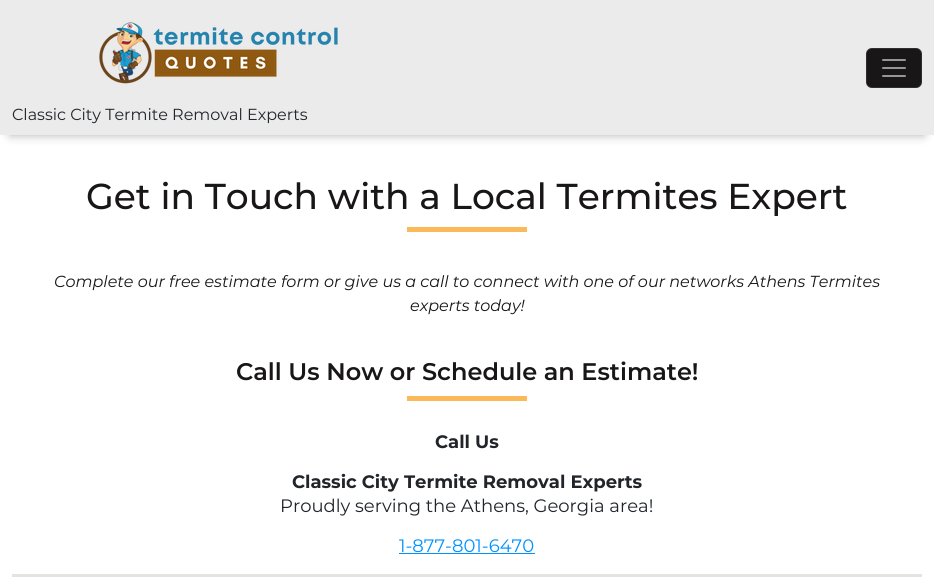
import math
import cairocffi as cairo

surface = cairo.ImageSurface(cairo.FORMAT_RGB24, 934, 577)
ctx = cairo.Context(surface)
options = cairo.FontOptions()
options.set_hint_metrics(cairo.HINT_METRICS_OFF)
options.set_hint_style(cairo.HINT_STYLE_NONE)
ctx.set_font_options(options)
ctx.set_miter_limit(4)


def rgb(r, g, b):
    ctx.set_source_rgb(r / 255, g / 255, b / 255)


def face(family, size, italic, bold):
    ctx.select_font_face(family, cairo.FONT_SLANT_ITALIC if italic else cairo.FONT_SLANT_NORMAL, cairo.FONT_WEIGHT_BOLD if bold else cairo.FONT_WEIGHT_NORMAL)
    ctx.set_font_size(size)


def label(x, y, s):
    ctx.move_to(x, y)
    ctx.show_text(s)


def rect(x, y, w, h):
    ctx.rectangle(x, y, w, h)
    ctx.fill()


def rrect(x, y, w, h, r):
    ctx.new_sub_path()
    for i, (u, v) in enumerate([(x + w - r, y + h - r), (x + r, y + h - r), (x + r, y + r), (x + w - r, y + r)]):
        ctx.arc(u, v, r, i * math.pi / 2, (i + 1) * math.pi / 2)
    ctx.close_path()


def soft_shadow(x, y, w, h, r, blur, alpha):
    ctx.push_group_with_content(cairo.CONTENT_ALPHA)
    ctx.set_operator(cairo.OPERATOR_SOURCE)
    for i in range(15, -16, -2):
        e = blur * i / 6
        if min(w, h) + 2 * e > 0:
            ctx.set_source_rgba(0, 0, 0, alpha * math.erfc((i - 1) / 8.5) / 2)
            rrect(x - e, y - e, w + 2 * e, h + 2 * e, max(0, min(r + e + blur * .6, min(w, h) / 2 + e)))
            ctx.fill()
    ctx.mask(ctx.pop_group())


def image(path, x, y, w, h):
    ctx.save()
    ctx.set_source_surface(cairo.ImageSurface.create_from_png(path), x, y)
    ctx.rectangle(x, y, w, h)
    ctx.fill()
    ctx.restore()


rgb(255, 255, 255)
ctx.paint()
rgb(17, 17, 17)
soft_shadow(10, 20, 914, 115, 0, 5, 0.33)
rgb(235, 235, 235)
rect(0, 0, 934, 135)
rgb(24, 22, 23)
rrect(866, 48, 56, 40, 6)
ctx.fill()
rrect(866.5, 48.5, 55, 39, 5.5)
ctx.set_source_rgba(1, 1, 1, 0.1)
ctx.set_line_width(1)
ctx.stroke()
image('image0.png', 882, 59, 24, 18)
image('image1.png', 99, 22, 239, 62)
face('Montserrat', 16, 0, 0)
rgb(33, 37, 41)
label(12, 120, 'Classic City Termite Removal Experts')
face('Montserrat Medium', 36, 0, 0)
rgb(24, 22, 23)
label(86, 209, 'Get in Touch with a Local Termites Expert')
rgb(250, 186, 89)
rect(407, 227, 120, 5)
face('Montserrat', 16, 1, 0)
rgb(24, 22, 23)
label(54, 287, 'Complete our free estimate form or give us a call to connect with one of our networks Athens Termites')
label(410, 311, 'experts today!')
face('Montserrat SemiBold', 24, 0, 0)
label(236, 380, 'Call Us Now or Schedule an Estimate!')
rgb(250, 186, 89)
rect(407, 396, 120, 5)
face('Montserrat', 18, 0, 1)
rgb(33, 37, 41)
label(435, 448, 'Call Us')
label(292, 488, 'Classic City Termite Removal Experts')
face('Montserrat', 18, 0, 0)
label(280, 512, 'Proudly serving the Athens, Georgia area!')
rgb(0, 147, 255)
label(399, 552, '1-877-801-6470')
rect(399, 553, 136, 1)
rgb(229, 227, 223)
rect(12, 574, 910, 3)
surface.write_to_png('render.png')
